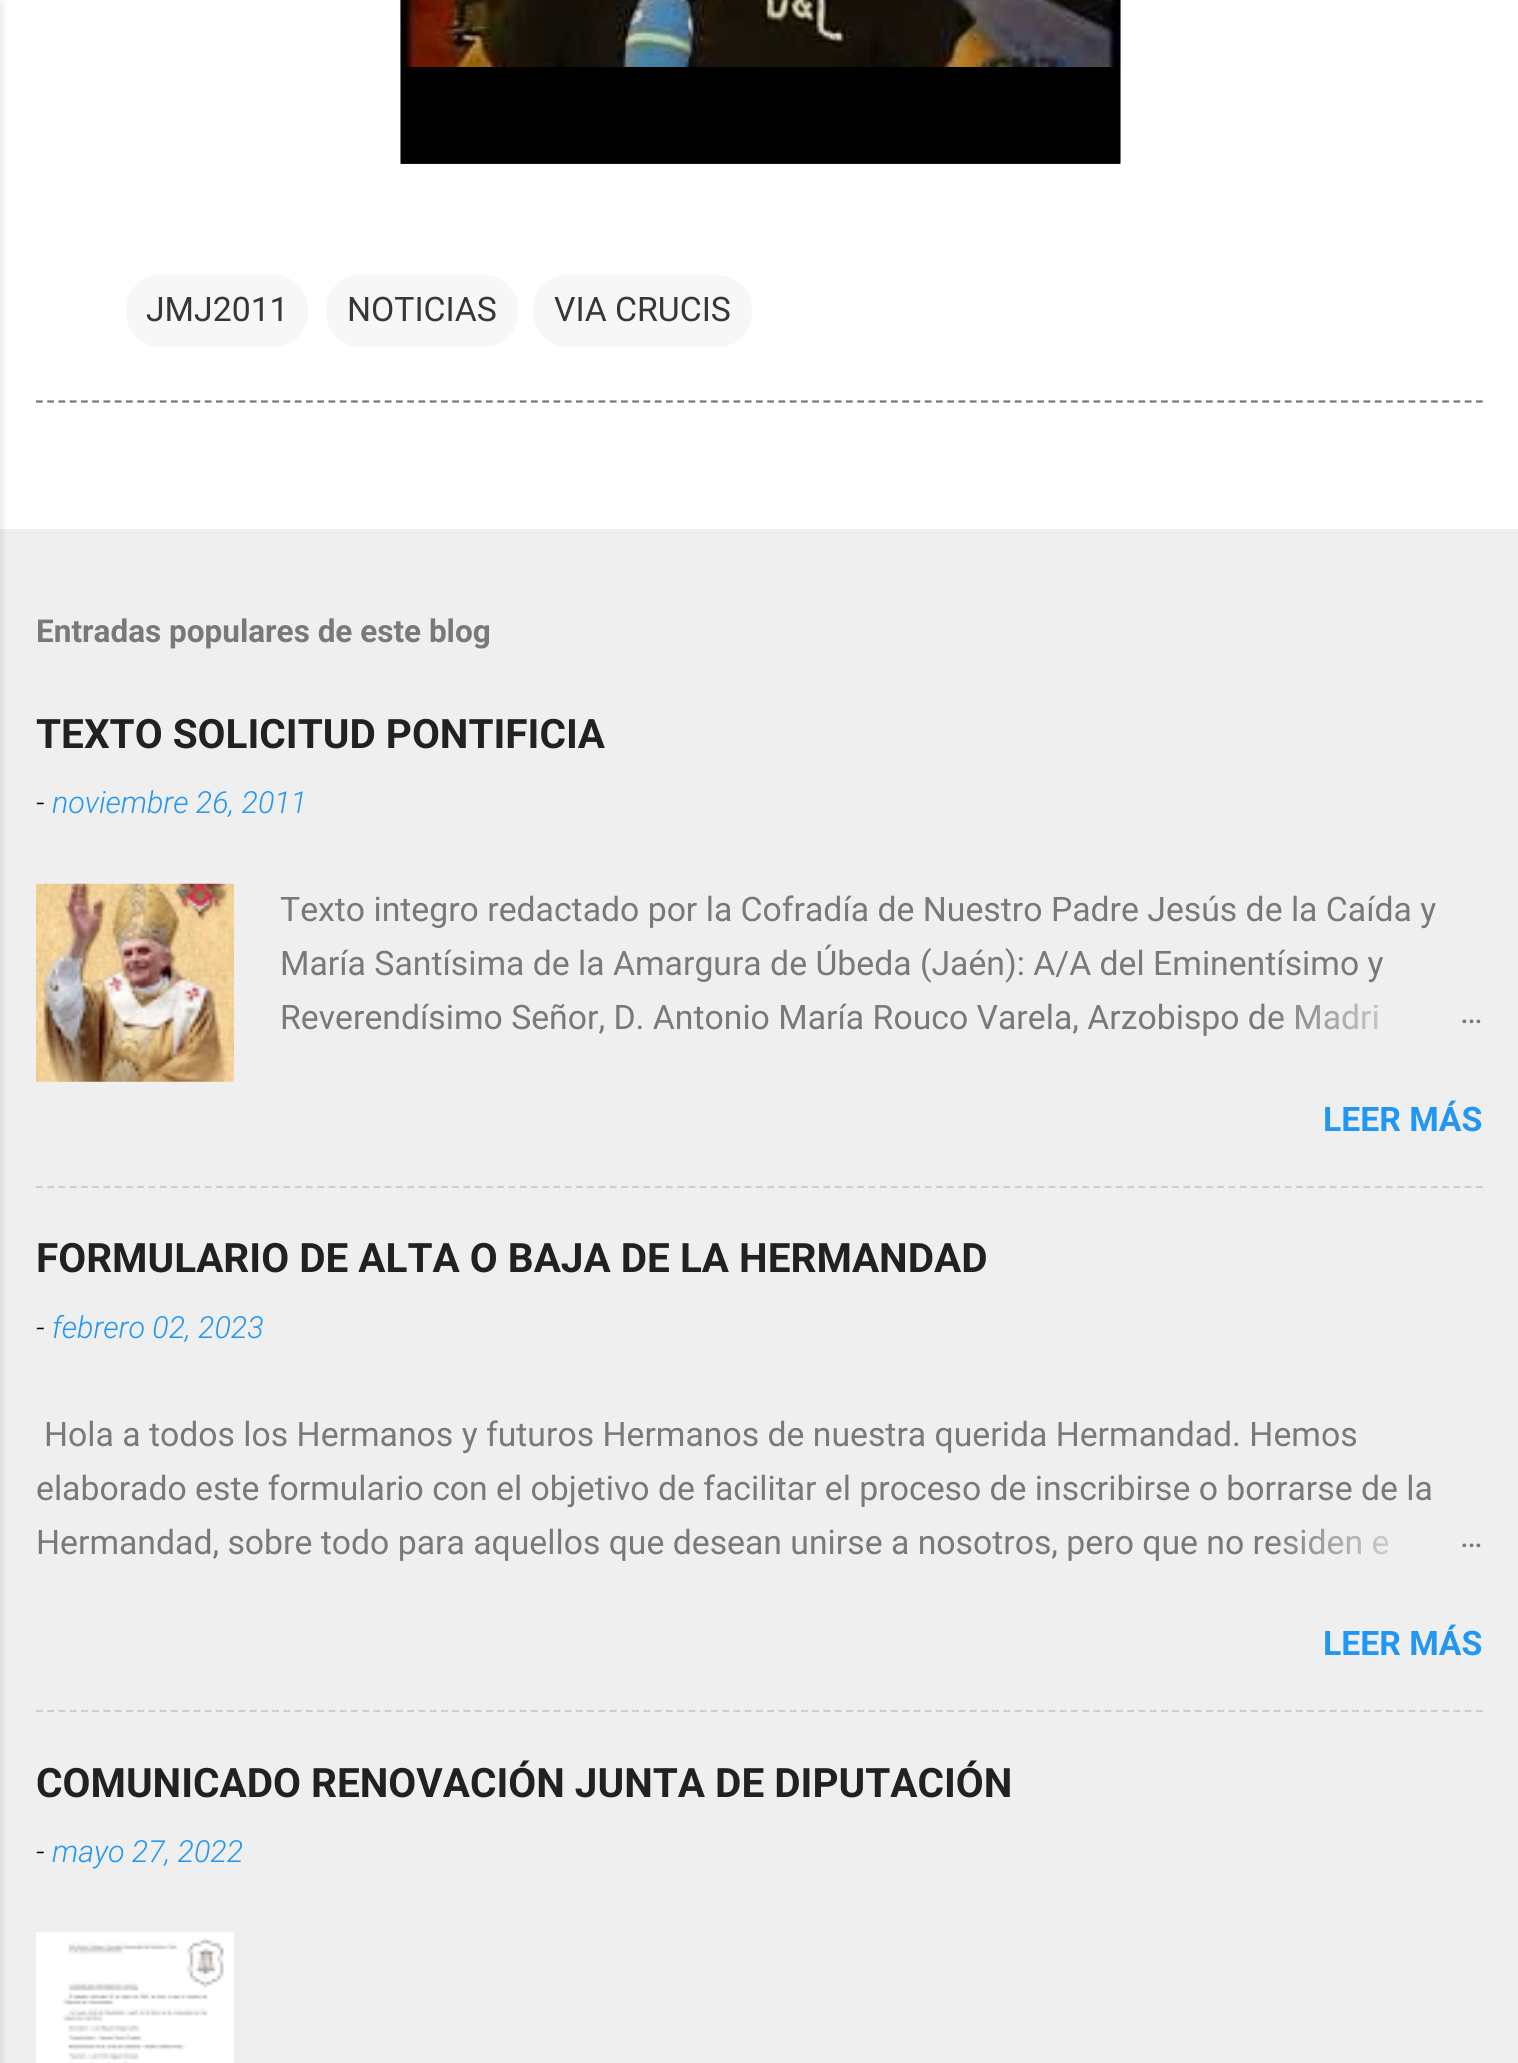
import math
import cairocffi as cairo

surface = cairo.ImageSurface(cairo.FORMAT_RGB24, 1518, 2063)
ctx = cairo.Context(surface)
options = cairo.FontOptions()
options.set_hint_metrics(cairo.HINT_METRICS_OFF)
options.set_hint_style(cairo.HINT_STYLE_NONE)
ctx.set_font_options(options)
ctx.set_miter_limit(4)


def rgb(r, g, b):
    ctx.set_source_rgb(r / 255, g / 255, b / 255)


def face(family, size, italic, bold):
    ctx.select_font_face(family, cairo.FONT_SLANT_ITALIC if italic else cairo.FONT_SLANT_NORMAL, cairo.FONT_WEIGHT_BOLD if bold else cairo.FONT_WEIGHT_NORMAL)
    ctx.set_font_size(size)


def label(x, y, s):
    ctx.move_to(x, y)
    ctx.show_text(s)


def rect(x, y, w, h):
    ctx.rectangle(x, y, w, h)
    ctx.fill()


def rrect(x, y, w, h, r):
    ctx.new_sub_path()
    for i, (u, v) in enumerate([(x + w - r, y + h - r), (x + r, y + h - r), (x + r, y + r), (x + w - r, y + r)]):
        ctx.arc(u, v, r, i * math.pi / 2, (i + 1) * math.pi / 2)
    ctx.close_path()


def soft_shadow(x, y, w, h, r, blur, alpha):
    ctx.push_group_with_content(cairo.CONTENT_ALPHA)
    ctx.set_operator(cairo.OPERATOR_SOURCE)
    for i in range(15, -16, -2):
        e = blur * i / 6
        if min(w, h) + 2 * e > 0:
            ctx.set_source_rgba(0, 0, 0, alpha * math.erfc((i - 1) / 8.5) / 2)
            rrect(x - e, y - e, w + 2 * e, h + 2 * e, max(0, min(r + e + blur * .6, min(w, h) / 2 + e)))
            ctx.fill()
    ctx.mask(ctx.pop_group())


def image(path, x, y, w, h):
    ctx.save()
    ctx.set_source_surface(cairo.ImageSurface.create_from_png(path), x, y)
    ctx.rectangle(x, y, w, h)
    ctx.fill()
    ctx.restore()


rgb(239, 239, 239)
ctx.paint()
rgb(255, 255, 255)
rect(0, 0, 1518, 529)
rgb(0, 0, 0)
soft_shadow(-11, 2, 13, 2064, 0, 3.5, 0.1)
image('image0.png', 400, 0, 721, 164)
rgb(247, 247, 247)
rrect(126, 275, 182, 72, 34)
ctx.fill()
face('Roboto', 33.75, 0, 0)
rgb(55, 55, 55)
label(146, 321, 'JMJ2011')
rgb(247, 247, 247)
rrect(326, 275, 192, 72, 34)
ctx.fill()
rgb(55, 55, 55)
label(347, 321, 'NOTICIAS')
rgb(247, 247, 247)
rrect(533, 275, 219, 72, 34)
ctx.fill()
rgb(55, 55, 55)
label(554, 321, 'VIA CRUCIS')
ctx.new_path()
ctx.move_to(36, 401.5)
ctx.line_to(1483, 401.5)
rgb(117, 117, 117)
ctx.set_line_width(2.2)
ctx.set_dash([6.75, 4.5])
ctx.stroke()
face('Roboto', 31.5, 0, 1)
rgb(121, 121, 121)
label(36, 642, 'Entradas populares de este blog')
face('Roboto', 40.5, 0, 1)
rgb(33, 33, 33)
label(36, 748, 'TEXTO SOLICITUD PONTIFICIA')
face('Roboto Light', 30.4, 1, 0)
rgb(0, 0, 0)
label(36, 813, '-')
rgb(33, 150, 243)
label(52, 813, 'noviembre 26, 2011')
image('image1.png', 36, 883, 198, 199)
face('Roboto', 33.75, 0, 0)
rgb(121, 121, 121)
label(280, 921, 'Texto integro redactado por la Cofradía de Nuestro Padre Jesús de la Caída y')
label(280, 975, 'María Santísima de la Amargura de Úbeda (Jaén): A/A del Eminentísimo y')
label(280, 1029, 'Reverendísimo Señor, D. Antonio María Rouco Varela, Arzobispo de Madri')
gradient = cairo.LinearGradient(1483, 1019, 1267, 1019)
gradient.add_color_stop_rgba(0, 0.933, 0.933, 0.933, 1)
gradient.add_color_stop_rgba(0.2, 0.933, 0.933, 0.933, 1)
gradient.add_color_stop_rgba(1, 0.933, 0.933, 0.933, 0)
ctx.set_source(gradient)
rect(1271, 1003, 106, 27)
rgb(121, 121, 121)
label(1460, 1023, '…')
face('Roboto', 33.75, 0, 1)
rgb(33, 150, 243)
label(1323, 1131, 'LEER MÁS')
ctx.new_path()
ctx.move_to(36, 1187)
ctx.line_to(1483, 1187)
rgb(205, 205, 205)
ctx.stroke()
face('Roboto', 40.5, 0, 1)
rgb(33, 33, 33)
label(36, 1272, 'FORMULARIO DE ALTA O BAJA DE LA HERMANDAD')
face('Roboto Light', 30.4, 1, 0)
rgb(0, 0, 0)
label(36, 1338, '-')
rgb(33, 150, 243)
label(52, 1338, 'febrero 02, 2023')
face('Roboto', 33.75, 0, 0)
rgb(121, 121, 121)
label(44, 1446, 'Hola a todos los Hermanos y futuros Hermanos de nuestra querida Hermandad. Hemos')
label(36, 1500, 'elaborado este formulario con el objetivo de facilitar el proceso de inscribirse o borrarse de la')
label(36, 1554, 'Hermandad, sobre todo para aquellos que desean unirse a nosotros, pero que no residen e')
gradient = cairo.LinearGradient(1483, 1544, 1267, 1544)
gradient.add_color_stop_rgba(0, 0.933, 0.933, 0.933, 1)
gradient.add_color_stop_rgba(0.2, 0.933, 0.933, 0.933, 1)
gradient.add_color_stop_rgba(1, 0.933, 0.933, 0.933, 0)
ctx.set_source(gradient)
rect(1271, 1528, 118, 27)
rgb(121, 121, 121)
label(1460, 1547, '…')
face('Roboto', 33.75, 0, 1)
rgb(33, 150, 243)
label(1323, 1655, 'LEER MÁS')
ctx.new_path()
ctx.move_to(36, 1711)
ctx.line_to(1483, 1711)
rgb(205, 205, 205)
ctx.stroke()
face('Roboto', 40.5, 0, 1)
rgb(33, 33, 33)
label(36, 1797, 'COMUNICADO RENOVACIÓN JUNTA DE DIPUTACIÓN')
face('Roboto Light', 30.4, 1, 0)
rgb(0, 0, 0)
label(36, 1862, '-')
rgb(33, 150, 243)
label(52, 1862, 'mayo 27, 2022')
image('image2.png', 36, 1932, 198, 131)
surface.write_to_png('render.png')
